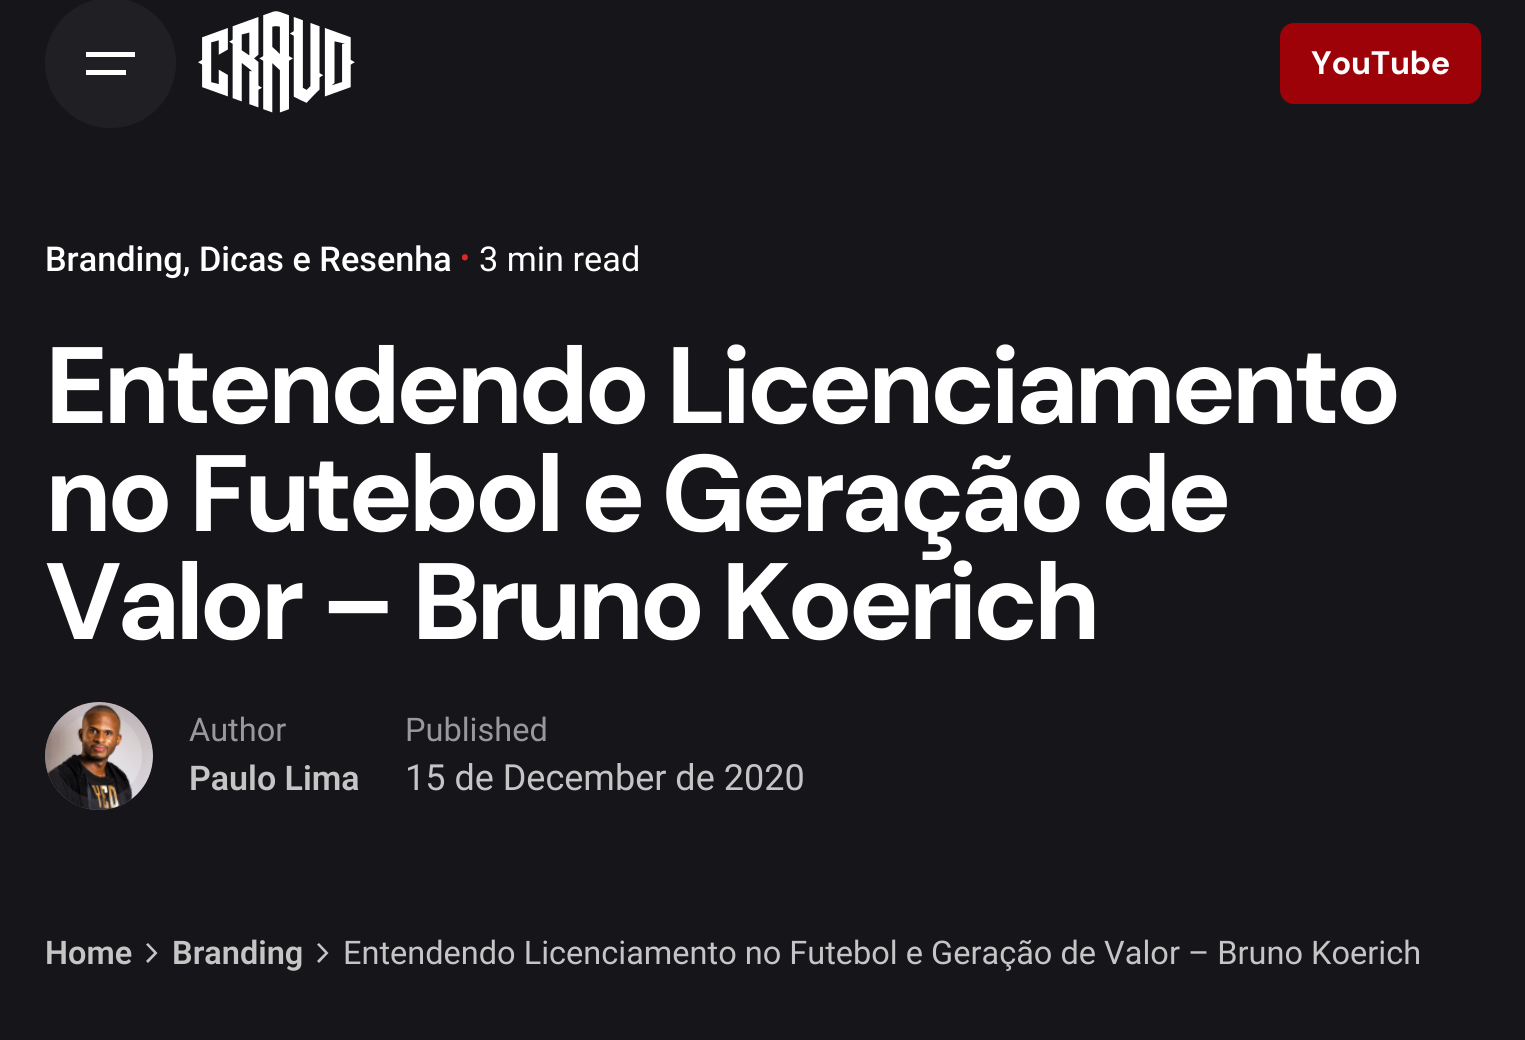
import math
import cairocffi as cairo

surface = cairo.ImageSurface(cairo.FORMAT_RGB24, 1525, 1040)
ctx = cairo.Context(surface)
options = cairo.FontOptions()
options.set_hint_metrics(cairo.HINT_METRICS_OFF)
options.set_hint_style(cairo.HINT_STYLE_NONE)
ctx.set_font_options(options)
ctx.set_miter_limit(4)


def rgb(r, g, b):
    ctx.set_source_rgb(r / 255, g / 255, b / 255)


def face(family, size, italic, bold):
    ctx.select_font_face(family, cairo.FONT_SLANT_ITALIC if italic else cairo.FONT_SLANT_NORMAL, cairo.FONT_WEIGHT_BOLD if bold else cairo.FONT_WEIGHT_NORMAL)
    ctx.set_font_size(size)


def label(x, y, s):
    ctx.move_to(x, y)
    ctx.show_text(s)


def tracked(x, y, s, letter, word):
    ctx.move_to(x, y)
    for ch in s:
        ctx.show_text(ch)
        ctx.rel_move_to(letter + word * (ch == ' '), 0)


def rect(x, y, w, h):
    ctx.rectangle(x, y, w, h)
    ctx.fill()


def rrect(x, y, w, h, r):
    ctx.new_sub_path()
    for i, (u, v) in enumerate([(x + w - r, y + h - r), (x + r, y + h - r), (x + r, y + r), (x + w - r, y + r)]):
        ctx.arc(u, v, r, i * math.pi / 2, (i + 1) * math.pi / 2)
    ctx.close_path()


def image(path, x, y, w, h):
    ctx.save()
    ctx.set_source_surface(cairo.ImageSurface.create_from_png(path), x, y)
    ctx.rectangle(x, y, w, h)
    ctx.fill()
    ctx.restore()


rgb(22, 21, 25)
ctx.paint()
rgb(32, 31, 36)
rrect(45, -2, 131, 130, 65)
ctx.fill()
rgb(255, 255, 255)
rect(86, 52, 49, 5)
rect(86, 70, 40, 5)
image('image0.png', 198, 11, 157, 102)
rgb(157, 2, 8)
rrect(1280, 23, 201, 81, 14)
ctx.fill()
face('DM Sans', 32.5, 0, 1)
rgb(255, 255, 255)
tracked(1311, 74, 'YouTube', -0.25, 0)
face('Roboto Medium', 34.25, 0, 0)
label(45, 271, 'Branding, Dicas e Resenha')
face('Roboto', 29, 0, 0)
rgb(220, 40, 40)
label(460, 268, '•')
face('Roboto', 34.25, 0, 0)
rgb(255, 255, 255)
label(479, 271, '3 min read')
face('DM Sans', 108.4, 0, 1)
tracked(45, 423, 'Entendendo Licenciamento', -4.9, 0)
tracked(45, 531, 'no Futebol e Geração de', -4.9, 0)
tracked(45, 639, 'Valor – Bruno Koerich', -4.9, 0)
rgb(67, 64, 73)
ctx.new_path()
ctx.arc(99, 756, 54, 0, 2 * math.pi)
ctx.fill()
ctx.set_source_rgba(0.588, 0.565, 0.635, 0.35)
ctx.arc(99, 756, 54, 0, 2 * math.pi)
ctx.fill()
image('image1.png', 45, 702, 108, 108)
ctx.arc(99, 756, 48.5, 0, 2 * math.pi)
ctx.set_source_rgba(0.588, 0.565, 0.635, 0.15)
ctx.set_line_width(11)
ctx.stroke()
face('Roboto', 32.5, 0, 0)
rgb(153, 153, 155)
label(189, 741, 'Author')
face('Roboto SemiBold', 34, 0, 0)
rgb(197, 197, 198)
label(189, 790, 'Paulo Lima')
face('Roboto', 32.5, 0, 0)
rgb(153, 153, 155)
label(405, 741, 'Published')
face('Roboto', 36, 0, 0)
rgb(197, 197, 198)
label(405, 790, '15 de December de 2020')
face('Roboto SemiBold', 32.5, 0, 0)
label(45, 964, 'Home')
ctx.new_path()
ctx.move_to(146, 961)
ctx.line_to(148, 963)
ctx.line_to(157.5, 953)
ctx.line_to(148, 943)
ctx.line_to(146, 944.5)
ctx.line_to(154, 953)
ctx.close_path()
ctx.fill()
label(172, 964, 'Branding')
ctx.new_path()
ctx.move_to(317, 961)
ctx.line_to(319, 963)
ctx.line_to(328.5, 953)
ctx.line_to(319, 943)
ctx.line_to(317, 944.5)
ctx.line_to(325, 953)
ctx.close_path()
ctx.fill()
face('Roboto', 32.5, 0, 0)
label(343, 964, 'Entendendo Licenciamento no Futebol e Geração de Valor – Bruno Koerich')
surface.write_to_png('render.png')
